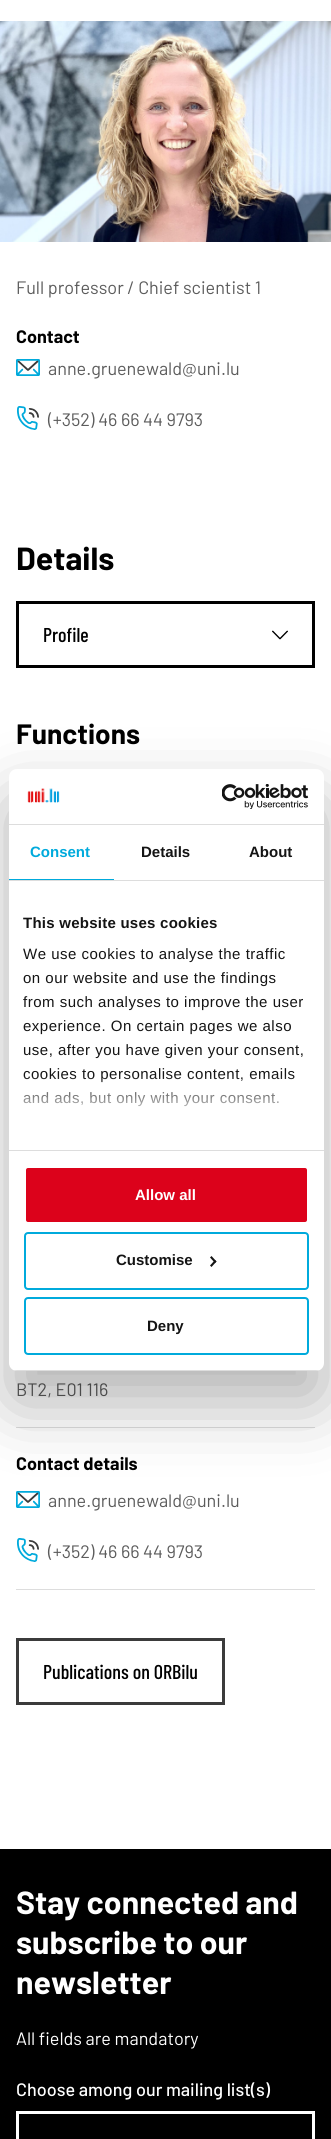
import math
import cairocffi as cairo

surface = cairo.ImageSurface(cairo.FORMAT_RGB24, 331, 2139)
ctx = cairo.Context(surface)
options = cairo.FontOptions()
options.set_hint_metrics(cairo.HINT_METRICS_OFF)
options.set_hint_style(cairo.HINT_STYLE_NONE)
ctx.set_font_options(options)
ctx.set_miter_limit(4)


def rgb(r, g, b):
    ctx.set_source_rgb(r / 255, g / 255, b / 255)


def face(family, size, italic, bold):
    ctx.select_font_face(family, cairo.FONT_SLANT_ITALIC if italic else cairo.FONT_SLANT_NORMAL, cairo.FONT_WEIGHT_BOLD if bold else cairo.FONT_WEIGHT_NORMAL)
    ctx.set_font_size(size)


def label(x, y, s):
    ctx.move_to(x, y)
    ctx.show_text(s)


def tracked(x, y, s, letter, word):
    ctx.move_to(x, y)
    for ch in s:
        ctx.show_text(ch)
        ctx.rel_move_to(letter + word * (ch == ' '), 0)


def rect(x, y, w, h):
    ctx.rectangle(x, y, w, h)
    ctx.fill()


def rrect(x, y, w, h, r):
    ctx.new_sub_path()
    for i, (u, v) in enumerate([(x + w - r, y + h - r), (x + r, y + h - r), (x + r, y + r), (x + w - r, y + r)]):
        ctx.arc(u, v, r, i * math.pi / 2, (i + 1) * math.pi / 2)
    ctx.close_path()


def soft_shadow(x, y, w, h, r, blur, alpha):
    ctx.push_group_with_content(cairo.CONTENT_ALPHA)
    ctx.set_operator(cairo.OPERATOR_SOURCE)
    for i in range(15, -16, -2):
        e = blur * i / 6
        if min(w, h) + 2 * e > 0:
            ctx.set_source_rgba(0, 0, 0, alpha * math.erfc((i - 1) / 8.5) / 2)
            rrect(x - e, y - e, w + 2 * e, h + 2 * e, max(0, min(r + e + blur * .6, min(w, h) / 2 + e)))
            ctx.fill()
    ctx.mask(ctx.pop_group())


def image(path, x, y, w, h):
    ctx.save()
    ctx.set_source_surface(cairo.ImageSurface.create_from_png(path), x, y)
    ctx.rectangle(x, y, w, h)
    ctx.fill()
    ctx.restore()


rgb(255, 255, 255)
ctx.paint()
image('image0.png', 0, 21, 331, 221)
face('Barlow', 18, 0, 0)
rgb(92, 92, 92)
label(16, 294, 'Full professor / Chief scientist 1')
face('Barlow', 18, 0, 1)
rgb(0, 0, 0)
label(16, 343, 'Contact')
image('image1.png', 16, 359, 24, 17)
face('Barlow', 18, 0, 0)
rgb(92, 92, 92)
label(48, 375, 'anne.gruenewald@uni.lu')
image('image2.png', 17, 406, 22, 24)
label(48, 426, '(+352) 46 66 44 9793')
face('Barlow', 32, 0, 1)
rgb(0, 0, 0)
label(16, 570, 'Details')
ctx.rectangle(17.5, 602.5, 296, 64)
ctx.set_line_width(3)
ctx.stroke()
face('Barlow Condensed Medium', 20, 0, 0)
label(43, 642, 'Profile')
image('image3.png', 272, 630, 16, 10)
face('Barlow', 28, 0, 1)
label(16, 744, 'Functions')
rgb(221, 221, 221)
rect(16, 1589, 299, 1)
face('Barlow', 18, 0, 0)
rgb(92, 92, 92)
label(16, 1396, 'BT2, E01 116')
rgb(221, 221, 221)
rect(16, 1427, 299, 1)
face('Barlow', 18, 0, 1)
rgb(0, 0, 0)
label(16, 1470, 'Contact details')
image('image1.png', 16, 1491, 24, 17)
face('Barlow', 18, 0, 0)
rgb(92, 92, 92)
label(48, 1507, 'anne.gruenewald@uni.lu')
image('image4.png', 17, 1538, 22, 24)
label(48, 1558, '(+352) 46 66 44 9793')
ctx.rectangle(17.5, 1639.5, 206, 64)
rgb(59, 59, 59)
ctx.stroke()
face('Barlow Condensed Medium', 20, 0, 0)
rgb(0, 0, 0)
label(43, 1679, 'Publications on ORBilu')
rect(0, 1849, 331, 290)
face('Barlow', 32, 0, 1)
rgb(255, 255, 255)
label(16, 1914, 'Stay connected and')
label(16, 1954, 'subscribe to our')
label(16, 1994, 'newsletter')
face('Barlow', 18, 0, 0)
label(16, 2045, 'All fields are mandatory')
face('Barlow Medium', 18, 0, 0)
label(16, 2096, 'Choose among our mailing list(s)')
ctx.rectangle(17.5, 2112.5, 296, 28)
ctx.stroke()
rgb(0, 0, 0)
soft_shadow(9, 801, 315, 602, 8, 34, 0.3)
rgb(255, 255, 255)
rrect(9, 769, 315, 602, 8)
ctx.fill()
rgb(221, 221, 221)
rect(9, 824, 315, 1)
image('image5.png', 27, 788, 33, 15)
image('image6.png', 222, 784, 87, 25)
rect(9, 880, 315, 1)
rgb(0, 170, 220)
rect(9, 879, 105, 1)
face('Liberation Sans', 15, 0, 1)
label(30, 857, 'Consent')
rgb(20, 20, 20)
label(141, 857, 'Details')
label(249, 857, 'About')
rgb(221, 221, 221)
rect(9, 1150, 315, 1)
rgb(20, 20, 20)
tracked(23, 928, 'This website uses cookies', 0.25, 0)
face('Liberation Sans', 15, 0, 0)
tracked(23, 959, 'We use cookies to analyse the traffic', 0.5, 0)
tracked(23, 983, 'on our website and use the findings', 0.5, 0)
tracked(23, 1007, 'from such analyses to improve the user', 0.5, 0)
tracked(23, 1031, 'experience. On certain pages we also', 0.5, 0)
tracked(23, 1055, 'use, after you have given your consent,', 0.5, 0)
tracked(23, 1079, 'cookies to personalise content, emails', 0.5, 0)
tracked(23, 1103, 'and ads, but only with your consent.', 0.5, 0)
gradient = cairo.LinearGradient(160, 1150, 160, 1075)
gradient.add_color_stop_rgba(0, 1, 1, 1, 1)
gradient.add_color_stop_rgba(0.5, 1, 1, 1, 0.8)
gradient.add_color_stop_rgba(1, 1, 1, 1, 0)
ctx.set_source(gradient)
rect(23, 1076, 272, 31)
ctx.save()
rrect(9, 769, 315, 602, 8)
ctx.clip()
rgb(221, 221, 221)
rect(9, 1370, 315, 1)
ctx.restore()
rgb(220, 2, 27)
rrect(25, 1167, 283, 56, 3)
ctx.fill_preserve()
rgb(255, 255, 255)
ctx.set_line_width(2)
ctx.stroke()
face('Liberation Sans', 15, 0, 1)
label(135, 1200, 'Allow all')
rrect(25, 1233, 283, 56, 3)
rgb(0, 170, 220)
ctx.stroke()
rgb(20, 20, 20)
label(116, 1265, 'Customise')
ctx.new_path()
ctx.move_to(211.5, 1256)
ctx.line_to(216.5, 1261.5)
ctx.line_to(215, 1263)
ctx.line_to(210, 1257.5)
ctx.close_path()
ctx.fill()
ctx.new_path()
ctx.move_to(215, 1260)
ctx.line_to(216.5, 1261.5)
ctx.line_to(211.5, 1267)
ctx.line_to(210, 1265.5)
ctx.close_path()
ctx.fill()
rrect(25, 1298, 283, 56, 3)
rgb(0, 170, 220)
ctx.stroke()
rgb(20, 20, 20)
label(147, 1331, 'Deny')
surface.write_to_png('render.png')
